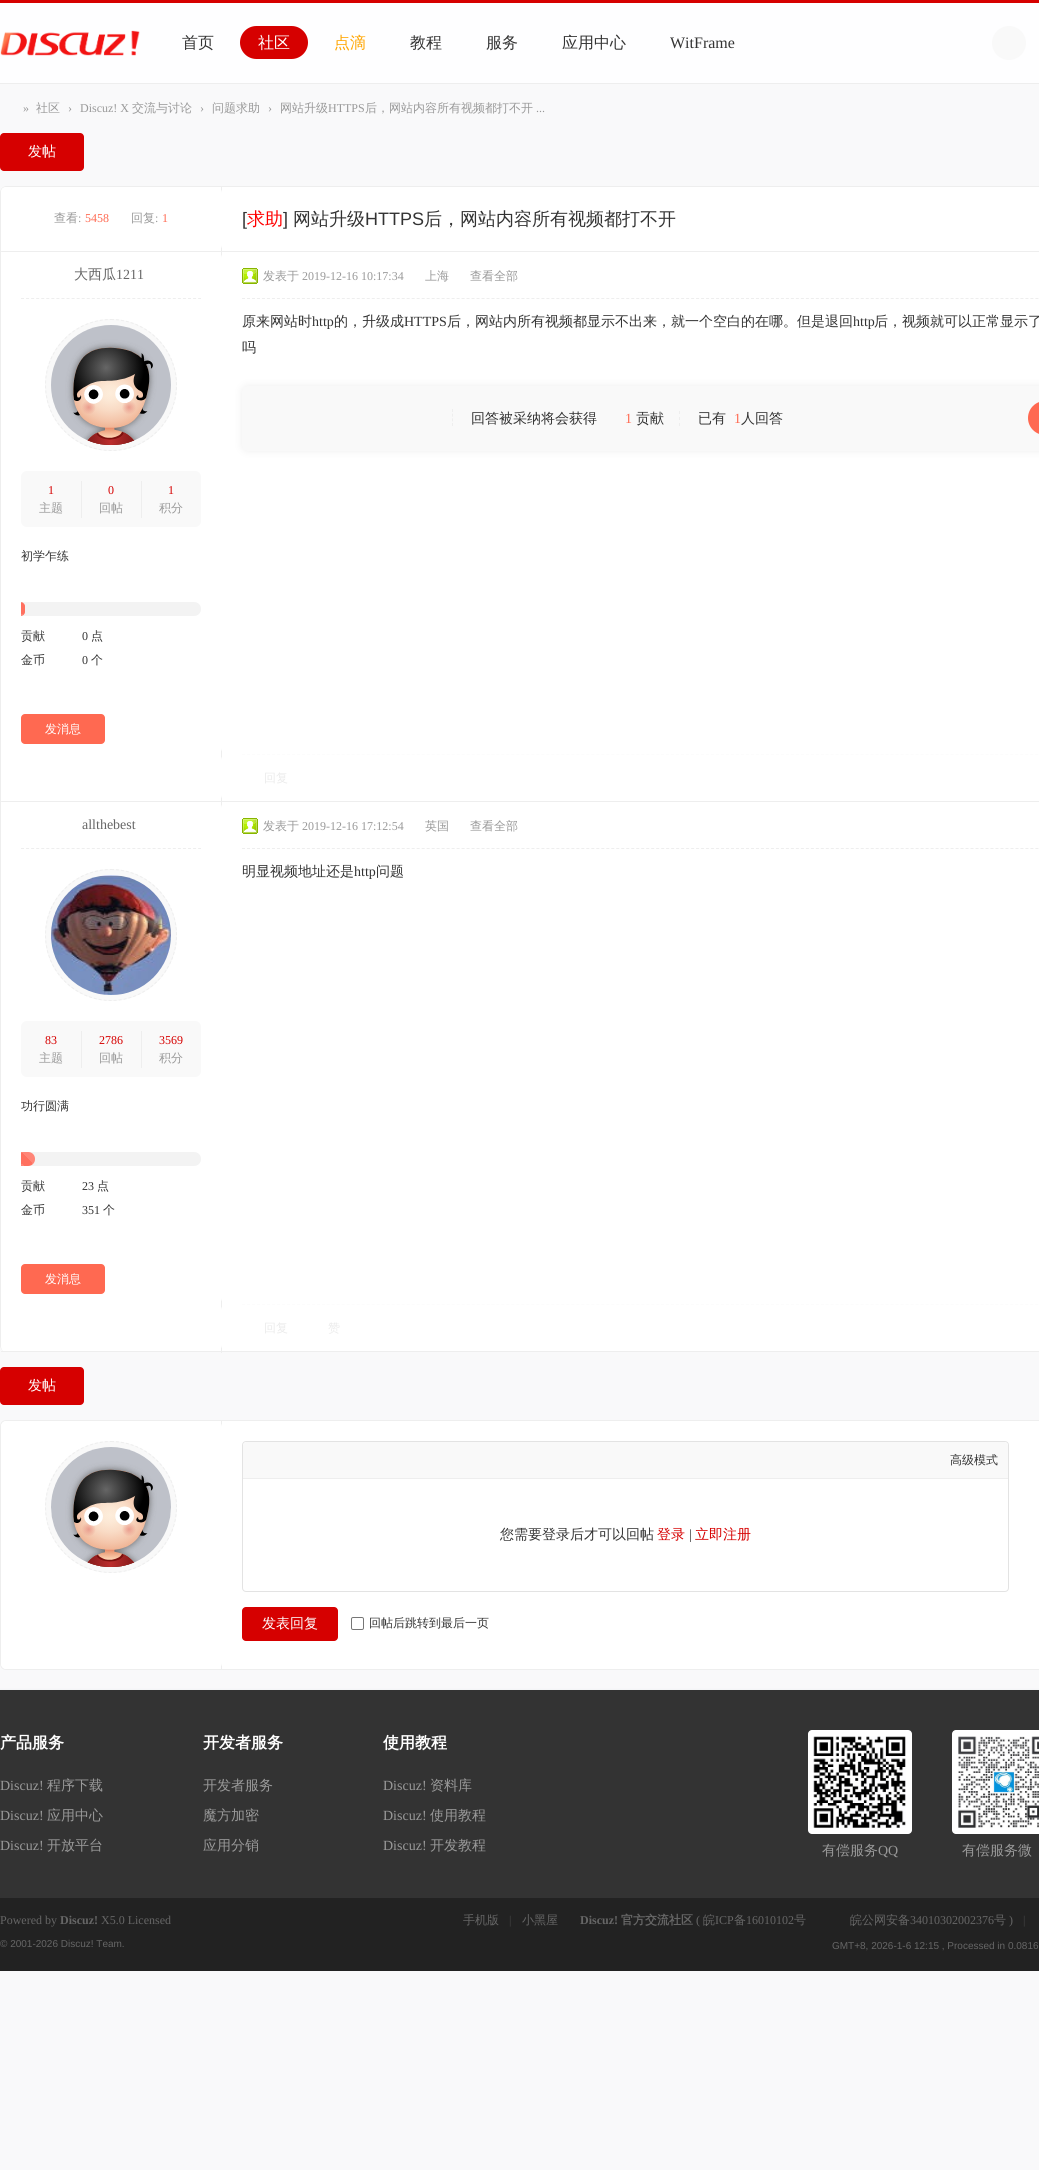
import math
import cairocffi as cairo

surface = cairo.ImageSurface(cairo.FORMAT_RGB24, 1039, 2170)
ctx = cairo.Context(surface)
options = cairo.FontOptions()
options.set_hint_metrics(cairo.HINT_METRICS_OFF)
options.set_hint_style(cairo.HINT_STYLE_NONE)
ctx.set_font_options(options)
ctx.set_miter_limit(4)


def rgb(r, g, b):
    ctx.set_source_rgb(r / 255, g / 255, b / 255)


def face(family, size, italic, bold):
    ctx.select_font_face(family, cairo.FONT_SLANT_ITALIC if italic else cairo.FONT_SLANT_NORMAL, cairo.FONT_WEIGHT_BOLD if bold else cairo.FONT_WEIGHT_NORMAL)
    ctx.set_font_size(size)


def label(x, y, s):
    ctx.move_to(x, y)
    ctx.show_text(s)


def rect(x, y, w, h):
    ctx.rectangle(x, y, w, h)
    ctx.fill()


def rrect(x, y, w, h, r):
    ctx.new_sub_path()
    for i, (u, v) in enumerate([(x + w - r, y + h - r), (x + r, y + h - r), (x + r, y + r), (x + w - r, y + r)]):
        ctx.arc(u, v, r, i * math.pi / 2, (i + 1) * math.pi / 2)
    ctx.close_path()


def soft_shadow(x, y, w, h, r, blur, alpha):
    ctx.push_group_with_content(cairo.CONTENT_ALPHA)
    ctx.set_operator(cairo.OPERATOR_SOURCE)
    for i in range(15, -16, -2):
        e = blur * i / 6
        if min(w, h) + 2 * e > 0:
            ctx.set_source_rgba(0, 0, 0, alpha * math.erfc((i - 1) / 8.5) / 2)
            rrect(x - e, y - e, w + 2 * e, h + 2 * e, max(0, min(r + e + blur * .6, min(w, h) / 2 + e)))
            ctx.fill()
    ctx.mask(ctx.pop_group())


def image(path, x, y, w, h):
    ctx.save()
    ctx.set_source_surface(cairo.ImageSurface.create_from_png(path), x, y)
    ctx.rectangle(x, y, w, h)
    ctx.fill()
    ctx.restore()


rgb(249, 249, 250)
ctx.paint()
rgb(254, 254, 255)
rect(0, 3, 1039, 80)
rgb(214, 0, 0)
rect(0, 0, 1039, 3)
rgb(238, 238, 238)
rect(0, 83, 1039, 1)
image('image0.png', 0, 30, 140, 26)
face('WenQuanYi Zen Hei Medium', 16, 0, 0)
rgb(51, 51, 51)
label(182, 48, '首页')
rgb(214, 0, 0)
rrect(240, 26, 68, 33, 16.5)
ctx.fill()
rgb(255, 255, 255)
label(258, 48, '社区')
rgb(255, 165, 0)
label(334, 48, '点滴')
rgb(51, 51, 51)
label(410, 48, '教程')
label(486, 48, '服务')
label(562, 48, '应用中心')
face('Liberation Serif', 16, 0, 0)
label(670, 48, 'WitFrame')
rgb(249, 249, 249)
ctx.new_path()
ctx.arc(1009, 43, 17, 0, 2 * math.pi)
ctx.fill()
face('Liberation Serif', 12, 0, 0)
rgb(153, 153, 153)
label(23, 112, '»')
face('WenQuanYi Zen Hei Medium', 12, 0, 0)
label(36, 112, '社区')
face('Liberation Serif', 12, 0, 0)
label(68, 112, '›')
label(80, 112, 'Discuz! X')
face('WenQuanYi Zen Hei Medium', 12, 0, 0)
label(132, 112, '交流与讨论')
face('Liberation Serif', 12, 0, 0)
label(200, 112, '›')
face('WenQuanYi Zen Hei Medium', 12, 0, 0)
label(212, 112, '问题求助')
face('Liberation Serif', 12, 0, 0)
label(268, 112, '›')
face('WenQuanYi Zen Hei Medium', 12, 0, 0)
label(280, 112, '网站升级')
face('Liberation Serif', 12, 0, 0)
label(328, 112, 'HTTPS')
face('WenQuanYi Zen Hei Medium', 12, 0, 0)
label(365, 112, '后，网站内容所有视频都打不开')
face('Liberation Serif', 12, 0, 0)
label(536, 112, '...')
rgb(214, 0, 0)
rrect(0, 133, 84, 38, 4)
ctx.fill()
face('WenQuanYi Zen Hei Medium', 14, 0, 0)
rgb(255, 255, 255)
label(28, 156, '发帖')
rrect(0, 186, 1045, 1166, 6)
ctx.fill()
rgb(238, 238, 238)
ctx.set_fill_rule(cairo.FILL_RULE_EVEN_ODD)
ctx.new_path()
ctx.move_to(6, 186)
ctx.line_to(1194, 186)
ctx.curve_to(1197, 186, 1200, 189, 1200, 192)
ctx.line_to(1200, 1346)
ctx.curve_to(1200, 1349, 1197, 1352, 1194, 1352)
ctx.line_to(6, 1352)
ctx.curve_to(3, 1352, 0, 1349, 0, 1346)
ctx.line_to(0, 192)
ctx.curve_to(0, 189, 3, 186, 6, 186)
ctx.close_path()
ctx.move_to(6, 187)
ctx.line_to(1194, 187)
ctx.curve_to(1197, 187, 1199, 189, 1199, 192)
ctx.line_to(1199, 1346)
ctx.curve_to(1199, 1349, 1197, 1352, 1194, 1352)
ctx.line_to(6, 1352)
ctx.curve_to(3, 1352, 1, 1349, 1, 1346)
ctx.line_to(1, 192)
ctx.curve_to(1, 189, 3, 187, 6, 187)
ctx.close_path()
ctx.fill()
rect(221, 187, 1, 65)
rgb(255, 255, 255)
rrect(1, 187, 221, 64, 6)
ctx.fill()
face('WenQuanYi Zen Hei Medium', 12, 0, 0)
rgb(153, 153, 153)
label(54, 222, '查看')
face('Liberation Serif', 12, 0, 0)
label(78, 222, ':')
rgb(255, 105, 81)
label(85, 222, '5458')
face('WenQuanYi Zen Hei Medium', 12, 0, 0)
rgb(153, 153, 153)
label(131, 222, '回复')
face('Liberation Serif', 12, 0, 0)
label(155, 222, ':')
rgb(255, 105, 81)
label(162, 222, '1')
face('Liberation Sans', 18, 0, 0)
rgb(51, 51, 51)
label(242, 225, '[')
face('WenQuanYi Zen Hei Medium', 18, 0, 0)
rgb(255, 0, 0)
label(247, 225, '求助')
face('Liberation Sans', 18, 0, 0)
rgb(51, 51, 51)
label(283, 225, ']')
face('WenQuanYi Zen Hei Medium', 18, 0, 0)
label(293, 225, '网站升级')
face('Liberation Sans', 18, 0, 0)
label(365, 225, 'HTTPS')
face('WenQuanYi Zen Hei Medium', 18, 0, 0)
label(424, 225, '后，网站内容所有视频都打不开')
rgb(238, 238, 238)
rrect(1, 251, 221, 1, 0.5)
ctx.fill()
rect(222, 251, 817, 1)
rect(221, 252, 1, 550)
rgb(255, 255, 255)
rrect(1, 252, 221, 502, 6)
ctx.fill()
ctx.new_path()
ctx.move_to(21, 298.5)
ctx.line_to(201, 298.5)
rgb(238, 238, 238)
ctx.set_line_width(1)
ctx.set_dash([3, 2.06])
ctx.stroke()
face('WenQuanYi Zen Hei Medium', 14, 0, 0)
rgb(102, 102, 102)
label(74, 279, '大西瓜')
face('Liberation Serif', 14, 0, 0)
label(116, 279, '1211')
rgb(249, 249, 249)
ctx.new_path()
ctx.arc(111, 385, 66, 0, 2 * math.pi)
ctx.fill()
ctx.new_path()
ctx.move_to(111, 319.5)
ctx.curve_to(147, 319.5, 176.5, 349, 176.5, 385)
ctx.curve_to(176.5, 421, 147, 450.5, 111, 450.5)
ctx.curve_to(75, 450.5, 45.5, 421, 45.5, 385)
ctx.curve_to(45.5, 349, 75, 319.5, 111, 319.5)
ctx.close_path()
rgb(238, 238, 238)
ctx.set_dash([3, 2])
ctx.stroke()
image('image1.png', 51, 325, 120, 120)
rgb(249, 249, 249)
rrect(21, 471, 180, 56, 6)
ctx.fill()
rgb(238, 238, 238)
rect(81, 481, 1, 37)
face('Liberation Serif', 12, 0, 0)
rgb(214, 0, 0)
label(48, 494, '1')
face('WenQuanYi Zen Hei Medium', 12, 0, 0)
rgb(153, 153, 153)
label(39, 512, '主题')
rgb(238, 238, 238)
rect(141, 481, 1, 37)
face('Liberation Serif', 12, 0, 0)
rgb(214, 0, 0)
label(108, 494, '0')
face('WenQuanYi Zen Hei Medium', 12, 0, 0)
rgb(153, 153, 153)
label(99, 512, '回帖')
face('Liberation Serif', 12, 0, 0)
rgb(214, 0, 0)
label(168, 494, '1')
face('WenQuanYi Zen Hei Medium', 12, 0, 0)
rgb(153, 153, 153)
label(159, 512, '积分')
rgb(51, 51, 51)
label(21, 560, '初学乍练')
rgb(243, 243, 243)
ctx.new_path()
ctx.move_to(21, 602)
ctx.line_to(194, 602)
ctx.curve_to(198, 602, 201, 605, 201, 609)
ctx.curve_to(201, 613, 198, 616, 194, 616)
ctx.line_to(21, 616)
ctx.close_path()
ctx.fill()
rgb(255, 112, 95)
ctx.new_path()
ctx.move_to(21, 602)
ctx.curve_to(23, 602, 25, 604, 25, 606)
ctx.line_to(25, 612)
ctx.curve_to(25, 614, 23, 616, 21, 616)
ctx.close_path()
ctx.fill()
gradient = cairo.LinearGradient(21, 624, 43, 602)
gradient.add_color_stop_rgba(0.25, 1, 1, 1, 0.15)
gradient.add_color_stop_rgba(0.25, 1, 1, 1, 0)
gradient.add_color_stop_rgba(0.5, 1, 1, 1, 0)
gradient.add_color_stop_rgba(0.5, 1, 1, 1, 0.15)
gradient.add_color_stop_rgba(0.75, 1, 1, 1, 0.15)
gradient.add_color_stop_rgba(0.75, 1, 1, 1, 0)
gradient.add_color_stop_rgba(1, 0, 0, 0, 0)
ctx.set_source(gradient)
ctx.new_path()
ctx.move_to(21, 602)
ctx.curve_to(23, 602, 25, 604, 25, 606)
ctx.line_to(25, 612)
ctx.curve_to(25, 614, 23, 616, 21, 616)
ctx.close_path()
ctx.fill()
rgb(51, 51, 51)
label(21, 640, '贡献')
face('Liberation Serif', 12, 0, 0)
label(82, 640, '0')
face('WenQuanYi Zen Hei Medium', 12, 0, 0)
label(91, 640, '点')
label(21, 664, '金币')
face('Liberation Serif', 12, 0, 0)
label(82, 664, '0')
face('WenQuanYi Zen Hei Medium', 12, 0, 0)
label(91, 664, '个')
rgb(255, 105, 81)
rrect(21, 714, 84, 30, 4)
ctx.fill()
rgb(255, 255, 255)
label(45, 733, '发消息')
ctx.new_path()
ctx.move_to(242, 298.5)
ctx.line_to(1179, 298.5)
rgb(238, 238, 238)
ctx.set_dash([3, 1.99])
ctx.stroke()
image('image2.png', 242, 268, 16, 16)
rgb(153, 153, 153)
label(263, 280, '发表于')
face('Liberation Serif', 12, 0, 0)
label(302, 280, '2019-12-16 10:17:34')
face('WenQuanYi Zen Hei Medium', 12, 0, 0)
label(425, 280, '上海')
label(470, 280, '查看全部')
face('WenQuanYi Zen Hei Medium', 14, 0, 0)
rgb(51, 51, 51)
label(242, 326, '原来网站时')
face('Liberation Serif', 14, 0, 0)
label(312, 326, 'http')
face('WenQuanYi Zen Hei Medium', 14, 0, 0)
label(334, 326, '的，升级成')
face('Liberation Serif', 14, 0, 0)
label(404, 326, 'HTTPS')
face('WenQuanYi Zen Hei Medium', 14, 0, 0)
label(447, 326, '后，网站内所有视频都显示不出来，就一个空白的在哪。但是退回')
face('Liberation Serif', 14, 0, 0)
label(853, 326, 'http')
face('WenQuanYi Zen Hei Medium', 14, 0, 0)
label(874, 326, '后，视频就可以正常显示了')
label(242, 352, '吗')
rgb(238, 238, 238)
soft_shadow(242, 386, 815, 65, 6, 4, 1)
rgb(249, 249, 249)
rrect(242, 386, 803, 65, 6)
ctx.fill()
ctx.new_path()
ctx.move_to(452.5, 409)
ctx.line_to(452.5, 426)
rgb(238, 238, 238)
ctx.set_dash([3, 1.67])
ctx.stroke()
rgb(51, 51, 51)
label(471, 423, '回答被采纳将会获得')
face('Liberation Serif', 14, 0, 0)
rgb(255, 105, 81)
label(625, 423, '1')
face('WenQuanYi Zen Hei Medium', 14, 0, 0)
rgb(51, 51, 51)
label(636, 423, '贡献')
label(698, 423, '已有')
ctx.new_path()
ctx.move_to(679.5, 411)
ctx.line_to(679.5, 414)
ctx.move_to(679.5, 417)
ctx.line_to(679.5, 420)
ctx.move_to(679.5, 423)
ctx.line_to(679.5, 426)
rgb(238, 238, 238)
ctx.set_dash([])
ctx.stroke()
face('Liberation Serif', 14, 0, 0)
rgb(255, 105, 81)
label(734, 423, '1')
face('WenQuanYi Zen Hei Medium', 14, 0, 0)
rgb(51, 51, 51)
label(741, 423, '人回答')
rgb(255, 105, 81)
rrect(1028, 401, 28, 34, 17)
ctx.fill()
rgb(255, 255, 255)
rrect(1, 754, 221, 47, 6)
ctx.fill()
ctx.new_path()
ctx.move_to(242, 754.5)
ctx.line_to(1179, 754.5)
rgb(252, 252, 252)
ctx.set_dash([3, 1.99])
ctx.stroke()
face('WenQuanYi Zen Hei Medium', 12, 0, 0)
rgb(235, 235, 235)
label(264, 782, '回复')
rgb(238, 238, 238)
rrect(1, 801, 221, 1, 0.5)
ctx.fill()
rect(222, 801, 817, 1)
rect(221, 802, 1, 551)
rrect(1, 1351, 221, 1, 0.5)
ctx.fill()
rect(222, 1351, 817, 1)
rgb(255, 255, 255)
rrect(1, 802, 221, 502, 6)
ctx.fill()
ctx.new_path()
ctx.move_to(21, 848.5)
ctx.line_to(201, 848.5)
rgb(238, 238, 238)
ctx.set_dash([3, 2.06])
ctx.stroke()
face('Liberation Serif', 14, 0, 0)
rgb(102, 102, 102)
label(82, 829, 'allthebest')
rgb(249, 249, 249)
ctx.new_path()
ctx.arc(111, 935, 66, 0, 2 * math.pi)
ctx.fill()
ctx.new_path()
ctx.move_to(111, 869.5)
ctx.curve_to(147, 869.5, 176.5, 899, 176.5, 935)
ctx.curve_to(176.5, 971, 147, 1000.5, 111, 1000.5)
ctx.curve_to(75, 1000.5, 45.5, 971, 45.5, 935)
ctx.curve_to(45.5, 899, 75, 869.5, 111, 869.5)
ctx.close_path()
rgb(238, 238, 238)
ctx.set_dash([3, 2])
ctx.stroke()
image('image3.png', 51, 875, 120, 120)
rgb(249, 249, 249)
rrect(21, 1021, 180, 56, 6)
ctx.fill()
rgb(238, 238, 238)
rect(81, 1031, 1, 37)
face('Liberation Serif', 12, 0, 0)
rgb(214, 0, 0)
label(45, 1044, '83')
face('WenQuanYi Zen Hei Medium', 12, 0, 0)
rgb(153, 153, 153)
label(39, 1062, '主题')
rgb(238, 238, 238)
rect(141, 1031, 1, 37)
face('Liberation Serif', 12, 0, 0)
rgb(214, 0, 0)
label(99, 1044, '2786')
face('WenQuanYi Zen Hei Medium', 12, 0, 0)
rgb(153, 153, 153)
label(99, 1062, '回帖')
face('Liberation Serif', 12, 0, 0)
rgb(214, 0, 0)
label(159, 1044, '3569')
face('WenQuanYi Zen Hei Medium', 12, 0, 0)
rgb(153, 153, 153)
label(159, 1062, '积分')
rgb(51, 51, 51)
label(21, 1110, '功行圆满')
rgb(243, 243, 243)
ctx.new_path()
ctx.move_to(21, 1152)
ctx.line_to(194, 1152)
ctx.curve_to(198, 1152, 201, 1155, 201, 1159)
ctx.curve_to(201, 1163, 198, 1166, 194, 1166)
ctx.line_to(21, 1166)
ctx.close_path()
ctx.fill()
rgb(255, 112, 95)
ctx.new_path()
ctx.move_to(21, 1152)
ctx.line_to(28, 1152)
ctx.curve_to(32, 1152, 35, 1155, 35, 1159)
ctx.curve_to(35, 1163, 32, 1166, 28, 1166)
ctx.line_to(21, 1166)
ctx.close_path()
ctx.fill()
gradient = cairo.LinearGradient(21, 1174, 43, 1152)
gradient.add_color_stop_rgba(0.25, 1, 1, 1, 0.15)
gradient.add_color_stop_rgba(0.25, 1, 1, 1, 0)
gradient.add_color_stop_rgba(0.5, 1, 1, 1, 0)
gradient.add_color_stop_rgba(0.5, 1, 1, 1, 0.15)
gradient.add_color_stop_rgba(0.75, 1, 1, 1, 0.15)
gradient.add_color_stop_rgba(0.75, 1, 1, 1, 0)
gradient.add_color_stop_rgba(1, 0, 0, 0, 0)
ctx.set_source(gradient)
ctx.new_path()
ctx.move_to(21, 1152)
ctx.line_to(28, 1152)
ctx.curve_to(32, 1152, 35, 1155, 35, 1159)
ctx.curve_to(35, 1163, 32, 1166, 28, 1166)
ctx.line_to(21, 1166)
ctx.close_path()
ctx.fill()
rgb(51, 51, 51)
label(21, 1190, '贡献')
face('Liberation Serif', 12, 0, 0)
label(82, 1190, '23')
face('WenQuanYi Zen Hei Medium', 12, 0, 0)
label(97, 1190, '点')
label(21, 1214, '金币')
face('Liberation Serif', 12, 0, 0)
label(82, 1214, '351')
face('WenQuanYi Zen Hei Medium', 12, 0, 0)
label(103, 1214, '个')
rgb(255, 105, 81)
rrect(21, 1264, 84, 30, 4)
ctx.fill()
rgb(255, 255, 255)
label(45, 1283, '发消息')
ctx.new_path()
ctx.move_to(242, 848.5)
ctx.line_to(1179, 848.5)
rgb(238, 238, 238)
ctx.set_dash([3, 1.99])
ctx.stroke()
image('image2.png', 242, 818, 16, 16)
rgb(153, 153, 153)
label(263, 830, '发表于')
face('Liberation Serif', 12, 0, 0)
label(302, 830, '2019-12-16 17:12:54')
face('WenQuanYi Zen Hei Medium', 12, 0, 0)
label(425, 830, '英国')
label(470, 830, '查看全部')
face('WenQuanYi Zen Hei Medium', 14, 0, 0)
rgb(51, 51, 51)
label(242, 876, '明显视频地址还是')
face('Liberation Serif', 14, 0, 0)
label(354, 876, 'http')
face('WenQuanYi Zen Hei Medium', 14, 0, 0)
label(376, 876, '问题')
rgb(255, 255, 255)
rrect(1, 1304, 221, 47, 6)
ctx.fill()
ctx.new_path()
ctx.move_to(242, 1304.5)
ctx.line_to(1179, 1304.5)
rgb(252, 252, 252)
ctx.stroke()
face('WenQuanYi Zen Hei Medium', 12, 0, 0)
rgb(235, 235, 235)
label(264, 1332, '回复')
label(328, 1332, '赞')
rgb(214, 0, 0)
rrect(0, 1367, 84, 38, 4)
ctx.fill()
face('WenQuanYi Zen Hei Medium', 14, 0, 0)
rgb(255, 255, 255)
label(28, 1390, '发帖')
rrect(0.5, 1420.5, 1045, 249, 5.5)
ctx.fill_preserve()
rgb(238, 238, 238)
ctx.set_dash([])
ctx.stroke()
rect(221, 1421, 1, 249)
rgb(255, 255, 255)
rrect(1, 1421, 221, 248, 6)
ctx.fill()
rgb(249, 249, 249)
ctx.arc(111, 1507, 66, 0, 2 * math.pi)
ctx.fill()
ctx.new_path()
ctx.move_to(111, 1441.5)
ctx.curve_to(147, 1441.5, 176.5, 1471, 176.5, 1507)
ctx.curve_to(176.5, 1543, 147, 1572.5, 111, 1572.5)
ctx.curve_to(75, 1572.5, 45.5, 1543, 45.5, 1507)
ctx.curve_to(45.5, 1471, 75, 1441.5, 111, 1441.5)
ctx.close_path()
rgb(238, 238, 238)
ctx.set_dash([3, 2])
ctx.stroke()
rgb(255, 255, 255)
ctx.arc(111, 1507, 60, 0, 2 * math.pi)
ctx.fill()
image('image4.png', 51, 1447, 120, 120)
rrect(242.5, 1441.5, 766, 150, 3.5)
rgb(227, 227, 227)
ctx.set_dash([])
ctx.stroke()
rgb(249, 249, 249)
ctx.new_path()
ctx.move_to(247, 1442)
ctx.line_to(1004, 1442)
ctx.curve_to(1006, 1442, 1008, 1444, 1008, 1446)
ctx.line_to(1008, 1479)
ctx.line_to(243, 1479)
ctx.line_to(243, 1446)
ctx.curve_to(243, 1444, 245, 1442, 247, 1442)
ctx.close_path()
ctx.fill()
rgb(238, 238, 238)
rect(243, 1478, 765, 1)
face('WenQuanYi Zen Hei Medium', 12, 0, 0)
rgb(51, 51, 51)
label(950, 1464, '高级模式')
face('WenQuanYi Zen Hei Medium', 14, 0, 0)
label(500, 1539, '您需要登录后才可以回帖')
rgb(214, 0, 0)
label(657, 1539, '登录')
face('Liberation Serif', 14, 0, 0)
rgb(51, 51, 51)
label(689, 1539, '|')
face('WenQuanYi Zen Hei Medium', 14, 0, 0)
rgb(214, 0, 0)
label(695, 1539, '立即注册')
rrect(242, 1607, 96, 34, 4)
ctx.fill()
rgb(255, 255, 255)
label(262, 1628, '发表回复')
rrect(351.5, 1617.5, 12, 12, 1.5)
rgb(118, 118, 118)
ctx.stroke()
face('WenQuanYi Zen Hei Medium', 12, 0, 0)
rgb(51, 51, 51)
label(369, 1627, '回帖后跳转到最后一页')
rgb(88, 118, 138)
soft_shadow(0, 1690, 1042, 208, 0, 1, 0.1)
rgb(51, 51, 51)
rect(0, 1690, 1039, 208)
face('WenQuanYi Zen Hei', 16, 0, 1)
rgb(255, 255, 255)
label(0, 1748, '产品服务')
face('Liberation Serif', 14, 0, 0)
rgb(153, 153, 153)
label(0, 1790, 'Discuz!')
face('WenQuanYi Zen Hei Medium', 14, 0, 0)
label(47, 1790, '程序下载')
face('Liberation Serif', 14, 0, 0)
label(0, 1820, 'Discuz!')
face('WenQuanYi Zen Hei Medium', 14, 0, 0)
label(47, 1820, '应用中心')
face('Liberation Serif', 14, 0, 0)
label(0, 1850, 'Discuz!')
face('WenQuanYi Zen Hei Medium', 14, 0, 0)
label(47, 1850, '开放平台')
face('WenQuanYi Zen Hei', 16, 0, 1)
rgb(255, 255, 255)
label(203, 1748, '开发者服务')
face('WenQuanYi Zen Hei Medium', 14, 0, 0)
rgb(153, 153, 153)
label(203, 1790, '开发者服务')
label(203, 1820, '魔方加密')
label(203, 1850, '应用分销')
face('WenQuanYi Zen Hei', 16, 0, 1)
rgb(255, 255, 255)
label(383, 1748, '使用教程')
face('Liberation Serif', 14, 0, 0)
rgb(153, 153, 153)
label(383, 1790, 'Discuz!')
face('WenQuanYi Zen Hei Medium', 14, 0, 0)
label(430, 1790, '资料库')
face('Liberation Serif', 14, 0, 0)
label(383, 1820, 'Discuz!')
face('WenQuanYi Zen Hei Medium', 14, 0, 0)
label(430, 1820, '使用教程')
face('Liberation Serif', 14, 0, 0)
label(383, 1850, 'Discuz!')
face('WenQuanYi Zen Hei Medium', 14, 0, 0)
label(430, 1850, '开发教程')
rgb(255, 255, 255)
rrect(808, 1730, 104, 104, 4)
ctx.fill()
image('image5.png', 813, 1736, 93, 92)
rgb(153, 153, 153)
label(822, 1855, '有偿服务')
face('Liberation Serif', 14, 0, 0)
label(878, 1855, 'QQ')
rgb(255, 255, 255)
rrect(952, 1730, 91, 104, 4)
ctx.fill()
image('image6.png', 958, 1736, 81, 92)
face('WenQuanYi Zen Hei Medium', 14, 0, 0)
rgb(153, 153, 153)
label(962, 1855, '有偿服务微')
rgb(34, 34, 34)
rect(0, 1898, 1039, 73)
face('Liberation Serif', 12, 0, 0)
rgb(102, 102, 102)
label(0, 1924, 'Powered by')
face('Liberation Serif', 12, 0, 1)
label(60, 1924, 'Discuz!')
face('Liberation Serif', 12, 0, 0)
label(101, 1924, 'X5.0 Licensed')
face('Liberation Sans', 10, 0, 0)
label(0, 1947, '© 2001-2026 Discuz! Team.')
face('WenQuanYi Zen Hei Medium', 12, 0, 0)
label(463, 1924, '手机版')
face('Liberation Serif', 12, 0, 0)
rgb(68, 68, 68)
label(509, 1924, '|')
face('WenQuanYi Zen Hei Medium', 12, 0, 0)
rgb(102, 102, 102)
label(522, 1924, '小黑屋')
face('Liberation Serif', 12, 0, 1)
label(580, 1924, 'Discuz!')
face('WenQuanYi Zen Hei', 12, 0, 1)
label(621, 1924, '官方交流社区')
face('Liberation Serif', 12, 0, 0)
label(696, 1924, '(')
face('WenQuanYi Zen Hei Medium', 12, 0, 0)
label(703, 1924, '皖')
face('Liberation Serif', 12, 0, 0)
label(715, 1924, 'ICP')
face('WenQuanYi Zen Hei Medium', 12, 0, 0)
label(734, 1924, '备')
face('Liberation Serif', 12, 0, 0)
label(746, 1924, '16010102')
face('WenQuanYi Zen Hei Medium', 12, 0, 0)
label(794, 1924, '号')
label(850, 1924, '皖公网安备')
face('Liberation Serif', 12, 0, 0)
label(910, 1924, '34010302002376')
face('WenQuanYi Zen Hei Medium', 12, 0, 0)
label(994, 1924, '号')
face('Liberation Serif', 12, 0, 0)
label(1009, 1924, ')')
rgb(68, 68, 68)
label(1023, 1924, '|')
face('Liberation Sans', 10, 0, 0)
rgb(102, 102, 102)
label(832, 1949, 'GMT+8, 2026-1-6 12:15 , Processed in 0.0816')
surface.write_to_png('render.png')
